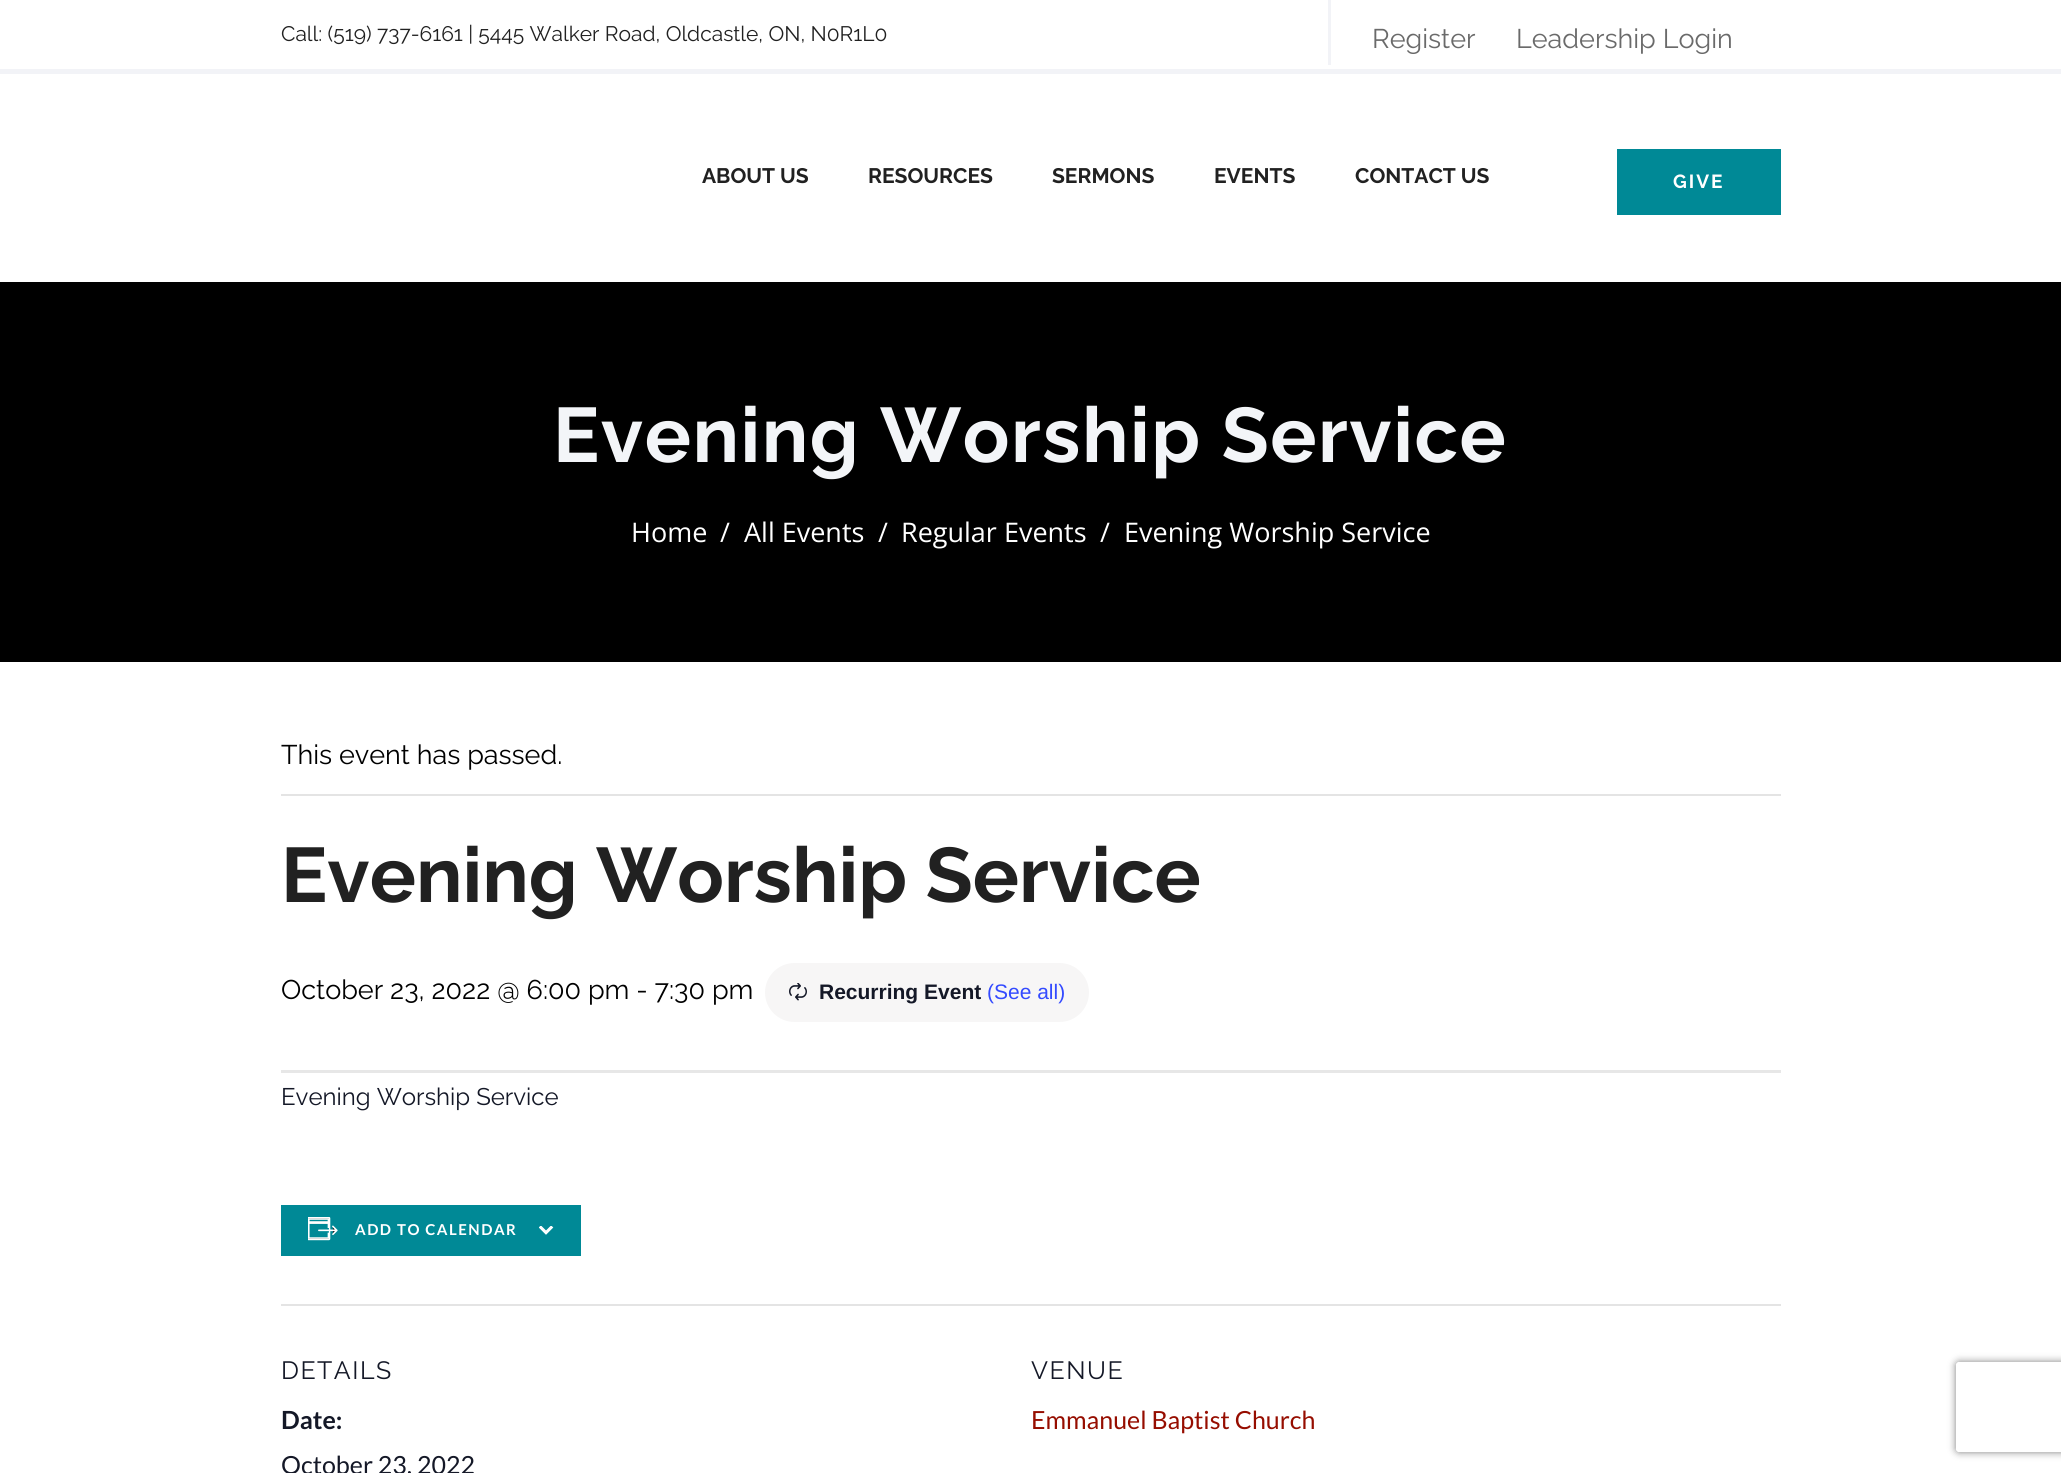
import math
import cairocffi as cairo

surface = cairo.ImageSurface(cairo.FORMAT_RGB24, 2061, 1473)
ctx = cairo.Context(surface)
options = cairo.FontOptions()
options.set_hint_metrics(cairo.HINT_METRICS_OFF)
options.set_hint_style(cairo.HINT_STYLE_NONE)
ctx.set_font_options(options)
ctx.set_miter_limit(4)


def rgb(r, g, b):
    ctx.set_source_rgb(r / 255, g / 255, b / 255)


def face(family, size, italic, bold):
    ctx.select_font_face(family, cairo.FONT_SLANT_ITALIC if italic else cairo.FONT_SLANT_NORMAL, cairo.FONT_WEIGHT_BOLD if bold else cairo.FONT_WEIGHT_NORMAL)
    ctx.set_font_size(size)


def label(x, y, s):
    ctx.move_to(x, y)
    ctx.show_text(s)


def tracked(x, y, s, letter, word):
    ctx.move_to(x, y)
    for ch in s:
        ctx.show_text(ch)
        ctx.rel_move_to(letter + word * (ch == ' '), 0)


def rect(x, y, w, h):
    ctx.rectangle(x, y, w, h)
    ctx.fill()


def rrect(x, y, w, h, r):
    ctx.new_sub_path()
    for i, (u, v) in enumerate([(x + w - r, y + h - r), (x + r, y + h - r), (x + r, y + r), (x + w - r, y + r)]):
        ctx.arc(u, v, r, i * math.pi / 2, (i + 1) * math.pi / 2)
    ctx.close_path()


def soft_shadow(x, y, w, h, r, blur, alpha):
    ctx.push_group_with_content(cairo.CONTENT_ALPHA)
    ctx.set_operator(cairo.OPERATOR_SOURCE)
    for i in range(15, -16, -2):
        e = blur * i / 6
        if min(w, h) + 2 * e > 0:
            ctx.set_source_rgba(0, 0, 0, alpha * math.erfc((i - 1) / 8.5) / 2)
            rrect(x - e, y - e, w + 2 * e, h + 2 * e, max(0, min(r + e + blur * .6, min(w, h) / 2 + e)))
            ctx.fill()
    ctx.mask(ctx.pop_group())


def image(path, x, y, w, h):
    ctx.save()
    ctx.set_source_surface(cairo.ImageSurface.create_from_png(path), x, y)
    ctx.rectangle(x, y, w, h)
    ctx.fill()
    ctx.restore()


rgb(255, 255, 255)
ctx.paint()
rgb(242, 243, 247)
rect(0, 69, 2061, 5)
face('Raleway', 21, 0, 0)
rgb(33, 33, 33)
label(281, 41, 'Call: (519) 737-6161 | 5445 Walker Road, Oldcastle, ON, N0R1L0')
rgb(242, 243, 247)
rect(1328, 0, 3, 65)
face('Raleway', 27, 0, 0)
rgb(106, 106, 106)
label(1372, 48, 'Register')
label(1516, 48, 'Leadership Login')
face('Raleway', 21, 0, 1)
rgb(33, 33, 33)
label(702, 183, 'ABOUT US')
label(868, 183, 'RESOURCES')
label(1052, 183, 'SERMONS')
label(1214, 183, 'EVENTS')
label(1355, 183, 'CONTACT US')
rgb(0, 137, 150)
rect(1617, 149, 164, 66)
face('Raleway', 19, 0, 1)
rgb(255, 255, 255)
tracked(1673, 188, 'GIVE', 2, 0)
rgb(0, 0, 0)
rect(0, 282, 2061, 380)
face('Raleway', 77.1, 0, 1)
rgb(243, 245, 248)
tracked(553, 462, 'Evening Worship Service', 1.5, 0)
face('Open Sans', 27, 0, 0)
rgb(255, 255, 255)
label(631, 542, 'Home')
label(720, 542, '/')
label(744, 542, 'All Events')
label(878, 542, '/')
label(901, 542, 'Regular Events')
label(1100, 542, '/')
label(1124, 542, 'Evening Worship Service')
rgb(228, 228, 228)
rect(281, 794, 1500, 2)
face('Raleway', 27, 0, 0)
rgb(0, 0, 0)
label(281, 764, 'This event has passed.')
face('Raleway', 77.1, 0, 1)
rgb(33, 33, 33)
label(281, 902, 'Evening Worship Service')
face('Raleway', 27, 0, 0)
rgb(0, 0, 0)
label(281, 999, 'October 23, 2022 @ 6:00 pm - 7:30 pm')
rgb(247, 246, 246)
rrect(765, 963, 324, 59, 29.5)
ctx.fill()
image('image0.png', 789, 983, 18, 18)
face('Liberation Sans', 21, 0, 1)
rgb(20, 24, 39)
label(819, 999, 'Recurring Event')
face('Liberation Sans', 21, 0, 0)
rgb(51, 74, 255)
label(987, 999, '(See all)')
rgb(231, 231, 231)
rect(281, 1070, 1500, 3)
face('Raleway', 24, 0, 0)
rgb(20, 24, 39)
label(281, 1105, 'Evening Worship Service')
rgb(0, 137, 150)
rect(281, 1205, 300, 51)
image('image1.png', 308, 1217, 30, 24)
face('Lato', 15, 0, 1)
rgb(255, 255, 255)
tracked(355, 1235, 'ADD TO CALENDAR', 1.5, 0)
image('image2.png', 539, 1226, 15, 9)
rgb(228, 228, 228)
rect(281, 1304, 1500, 2)
face('Raleway', 25, 0, 0)
rgb(20, 24, 39)
tracked(281, 1379, 'DETAILS', 1.5, 0)
face('Lato', 25, 0, 1)
label(281, 1429, 'Date:')
face('Lato', 25, 0, 0)
label(281, 1474, 'October 23, 2022')
face('Raleway', 25, 0, 0)
tracked(1031, 1379, 'VENUE', 1.5, 0)
face('Lato', 25, 0, 0)
rgb(150, 13, 0)
label(1031, 1429, 'Emmanuel Baptist Church')
ctx.save()
ctx.set_fill_rule(cairo.FILL_RULE_EVEN_ODD)
ctx.new_path()
ctx.move_to(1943, 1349)
ctx.line_to(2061, 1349)
ctx.line_to(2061, 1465)
ctx.line_to(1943, 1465)
ctx.close_path()
ctx.move_to(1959, 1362)
ctx.line_to(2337, 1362)
ctx.curve_to(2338.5, 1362, 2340, 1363.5, 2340, 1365)
ctx.line_to(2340, 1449)
ctx.curve_to(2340, 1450.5, 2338.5, 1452, 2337, 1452)
ctx.line_to(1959, 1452)
ctx.curve_to(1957.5, 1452, 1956, 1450.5, 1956, 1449)
ctx.line_to(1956, 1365)
ctx.curve_to(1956, 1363.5, 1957.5, 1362, 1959, 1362)
ctx.close_path()
ctx.clip()
rgb(128, 128, 128)
soft_shadow(1956, 1362, 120, 90, 3, 4, 1)
ctx.restore()
surface.write_to_png('render.png')
